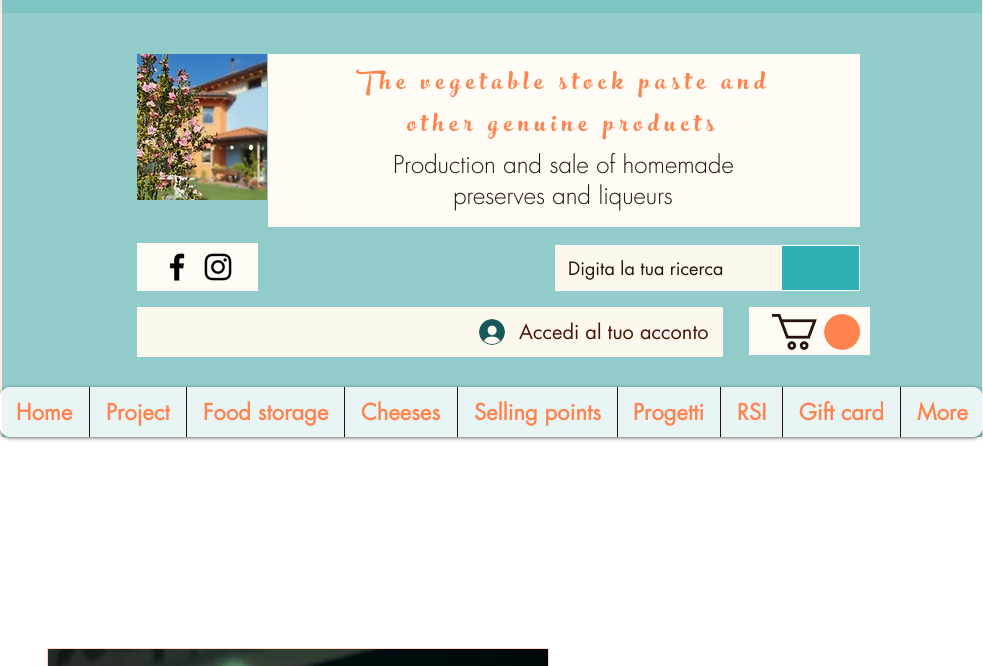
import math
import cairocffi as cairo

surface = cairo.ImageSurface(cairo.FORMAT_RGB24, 983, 666)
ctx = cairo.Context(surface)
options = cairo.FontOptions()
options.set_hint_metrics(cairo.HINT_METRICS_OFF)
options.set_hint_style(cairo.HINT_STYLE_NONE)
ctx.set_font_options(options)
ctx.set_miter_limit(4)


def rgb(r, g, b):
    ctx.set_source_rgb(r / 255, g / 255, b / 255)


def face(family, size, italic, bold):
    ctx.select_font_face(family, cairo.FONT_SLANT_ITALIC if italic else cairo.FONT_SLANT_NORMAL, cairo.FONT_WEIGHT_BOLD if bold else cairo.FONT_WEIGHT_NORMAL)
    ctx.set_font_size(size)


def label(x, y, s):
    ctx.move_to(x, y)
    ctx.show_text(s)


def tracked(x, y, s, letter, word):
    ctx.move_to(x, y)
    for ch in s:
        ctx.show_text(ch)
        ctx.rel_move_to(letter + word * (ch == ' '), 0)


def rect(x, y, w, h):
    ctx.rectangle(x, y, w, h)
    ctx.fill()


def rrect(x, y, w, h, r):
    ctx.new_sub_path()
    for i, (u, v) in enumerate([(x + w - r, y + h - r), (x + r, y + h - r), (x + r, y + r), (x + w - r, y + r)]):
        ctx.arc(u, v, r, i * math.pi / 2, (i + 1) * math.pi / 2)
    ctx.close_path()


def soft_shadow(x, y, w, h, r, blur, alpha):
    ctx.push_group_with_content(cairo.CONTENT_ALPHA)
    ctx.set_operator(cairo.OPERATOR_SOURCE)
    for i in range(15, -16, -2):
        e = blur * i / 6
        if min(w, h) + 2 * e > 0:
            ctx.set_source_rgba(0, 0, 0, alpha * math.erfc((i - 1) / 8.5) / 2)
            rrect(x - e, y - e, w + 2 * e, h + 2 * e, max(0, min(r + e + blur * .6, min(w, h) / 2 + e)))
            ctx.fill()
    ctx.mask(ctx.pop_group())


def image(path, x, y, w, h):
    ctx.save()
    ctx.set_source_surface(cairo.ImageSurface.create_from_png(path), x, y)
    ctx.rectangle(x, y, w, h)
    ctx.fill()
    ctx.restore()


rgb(255, 255, 255)
ctx.paint()
rgb(255, 232, 221)
rect(0, 0, 983, 437)
rgb(126, 197, 196)
rect(2, 0, 980, 437)
rgb(145, 204, 202)
rect(2, 13, 980, 374)
image('image0.png', 137, 54, 130, 146)
rgb(255, 252, 245)
rect(268, 54, 592, 173)
face('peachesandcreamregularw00', 38, 0, 0)
rgb(255, 131, 78)
tracked(356, 89, 'The vegetable stock paste and', 5.7, 0)
tracked(407, 131, 'other genuine products', 5.7, 0)
face('futura Light', 24, 0, 0)
rgb(36, 18, 11)
label(393, 173, 'Production and sale of homemade')
label(453, 204, 'preserves and liqueurs')
rgb(255, 252, 245)
rect(137, 243, 121, 48)
image('image1.png', 169, 253, 16, 28)
image('image2.png', 204, 253, 28, 28)
ctx.rectangle(555.5, 245.5, 304, 45)
rgb(255, 255, 255)
ctx.set_line_width(1)
ctx.stroke()
rgb(252, 248, 237)
rect(556, 246, 225, 44)
face('futura', 18, 0, 0)
rgb(36, 18, 11)
label(568, 275, 'Digita la tua ricerca')
rgb(46, 176, 180)
rect(782, 246, 77, 44)
rgb(255, 255, 255)
rect(781, 246, 1, 44)
rgb(255, 252, 245)
rect(749, 307, 121, 48)
rgb(252, 248, 237)
rect(137, 307, 586, 50)
image('image3.png', 479, 319, 26, 26)
face('futura', 20, 0, 0)
rgb(74, 20, 5)
label(519, 339, 'Accedi al tuo acconto')
image('image4.png', 772, 314, 88, 36)
ctx.save()
ctx.set_fill_rule(cairo.FILL_RULE_EVEN_ODD)
ctx.new_path()
ctx.move_to(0, 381)
ctx.line_to(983, 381)
ctx.line_to(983, 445)
ctx.line_to(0, 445)
ctx.close_path()
ctx.move_to(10, 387)
ctx.line_to(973, 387)
ctx.curve_to(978.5, 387, 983, 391.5, 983, 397)
ctx.line_to(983, 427)
ctx.curve_to(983, 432.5, 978.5, 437, 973, 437)
ctx.line_to(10, 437)
ctx.curve_to(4.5, 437, 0, 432.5, 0, 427)
ctx.line_to(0, 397)
ctx.curve_to(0, 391.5, 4.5, 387, 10, 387)
ctx.close_path()
ctx.clip()
rgb(0, 0, 0)
soft_shadow(0, 388, 983, 50, 10, 2, 0.6)
ctx.restore()
ctx.set_source_rgba(1, 1, 1, 0.82)
rrect(0, 387, 983, 50, 10)
ctx.fill()
face('futura', 22, 0, 1)
rgb(255, 131, 78)
label(16, 420, 'Home')
rgb(36, 18, 11)
rect(89, 387, 1, 50)
rgb(255, 131, 78)
label(106, 420, 'Project')
rgb(36, 18, 11)
rect(186, 387, 1, 50)
rgb(255, 131, 78)
label(203, 420, 'Food storage')
rgb(36, 18, 11)
rect(344, 387, 1, 50)
rgb(255, 131, 78)
label(361, 420, 'Cheeses')
rgb(36, 18, 11)
rect(457, 387, 1, 50)
rgb(255, 131, 78)
label(474, 420, 'Selling points')
rgb(36, 18, 11)
rect(617, 387, 1, 50)
rgb(255, 131, 78)
label(633, 420, 'Progetti')
rgb(36, 18, 11)
rect(720, 387, 1, 50)
rgb(255, 131, 78)
label(737, 420, 'RSI')
rgb(36, 18, 11)
rect(782, 387, 1, 50)
rgb(255, 131, 78)
label(799, 420, 'Gift card')
rgb(36, 18, 11)
rect(900, 387, 1, 50)
rgb(255, 131, 78)
label(917, 420, 'More')
ctx.rectangle(47.5, 648.5, 501, 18)
rgb(255, 214, 196)
ctx.stroke()
image('image5.png', 48, 649, 500, 17)
surface.write_to_png('render.png')
